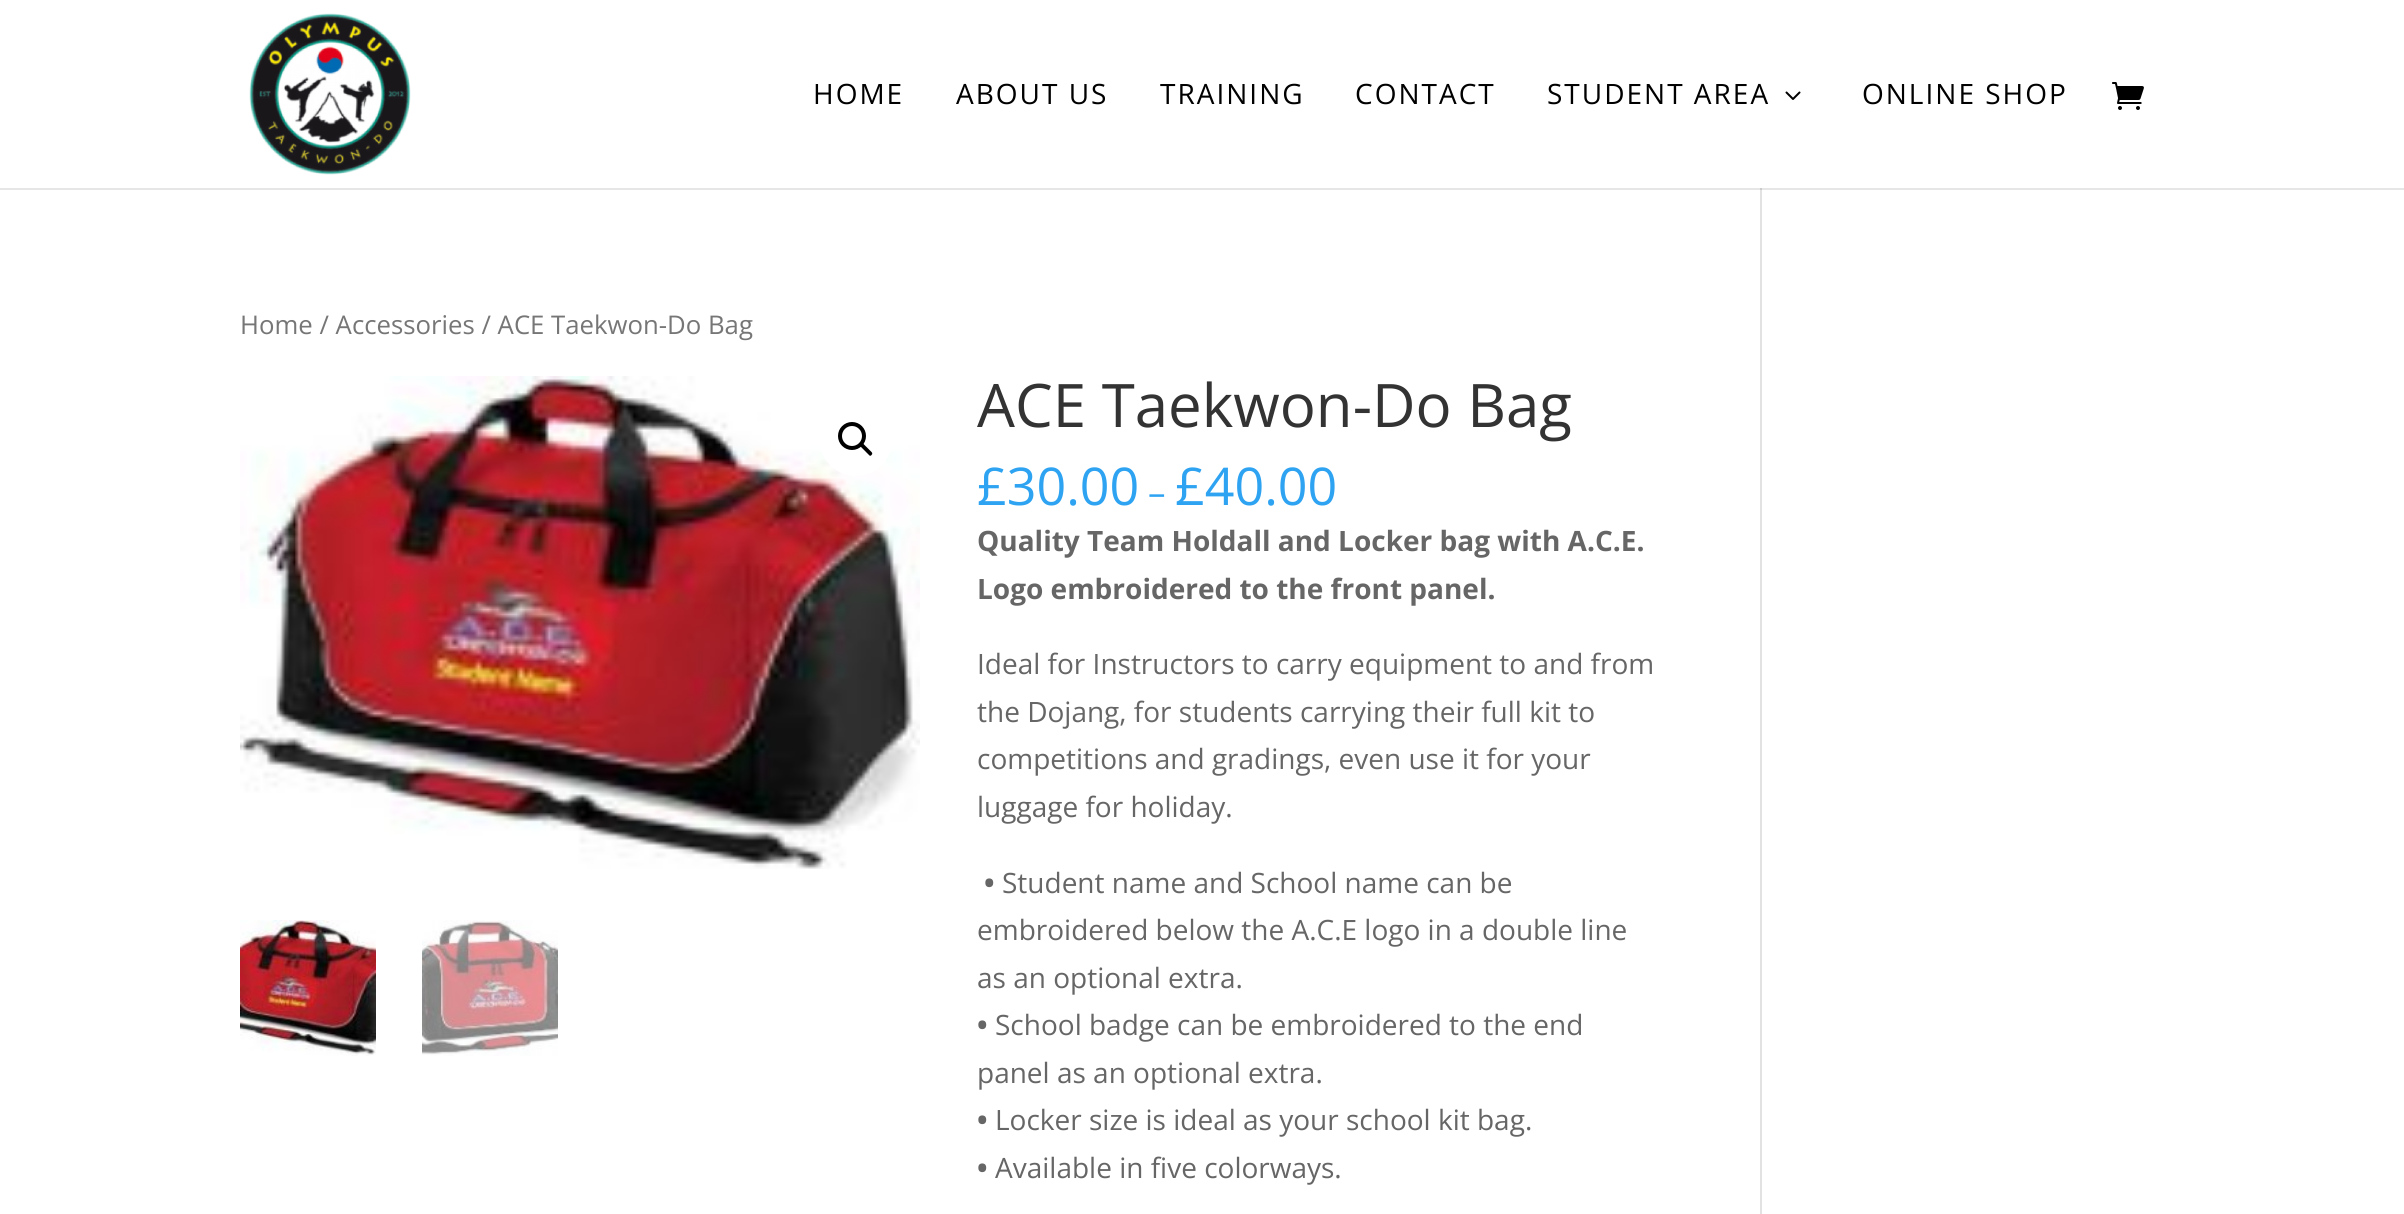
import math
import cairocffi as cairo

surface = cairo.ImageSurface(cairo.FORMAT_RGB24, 2404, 1214)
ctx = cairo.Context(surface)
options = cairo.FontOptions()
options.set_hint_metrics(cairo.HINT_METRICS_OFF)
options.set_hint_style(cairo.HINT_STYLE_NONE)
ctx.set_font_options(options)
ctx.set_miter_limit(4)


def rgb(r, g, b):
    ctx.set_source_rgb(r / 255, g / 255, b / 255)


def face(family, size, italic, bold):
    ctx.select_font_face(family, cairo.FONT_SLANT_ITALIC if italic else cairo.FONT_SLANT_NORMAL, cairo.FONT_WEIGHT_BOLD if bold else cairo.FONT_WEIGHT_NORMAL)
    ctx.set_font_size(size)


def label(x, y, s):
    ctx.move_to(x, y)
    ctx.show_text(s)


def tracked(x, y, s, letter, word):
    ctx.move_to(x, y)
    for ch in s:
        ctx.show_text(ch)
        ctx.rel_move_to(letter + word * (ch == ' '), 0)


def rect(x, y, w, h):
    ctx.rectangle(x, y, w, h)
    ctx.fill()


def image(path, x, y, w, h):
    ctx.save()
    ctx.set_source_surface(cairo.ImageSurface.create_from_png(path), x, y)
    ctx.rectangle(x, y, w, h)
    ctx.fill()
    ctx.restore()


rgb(255, 255, 255)
ctx.paint()
rgb(230, 230, 230)
rect(0, 188, 2404, 2)
rgb(226, 226, 226)
rect(1760, 186, 2, 1028)
rgb(255, 255, 255)
rect(1760, 186, 2, 2)
image('image0.png', 249, 13, 162, 162)
face('Open Sans', 28, 0, 0)
rgb(0, 0, 0)
tracked(813, 104, 'HOME', 2, 0)
tracked(956, 104, 'ABOUT US', 2, 0)
tracked(1160, 104, 'TRAINING', 2, 0)
tracked(1355, 104, 'CONTACT', 2, 0)
tracked(1547, 104, 'STUDENT AREA', 2, 0)
image('image1.png', 1785, 91, 16, 9)
tracked(1862, 104, 'ONLINE SHOP', 2, 0)
image('image2.png', 2112, 82, 32, 28)
face('Open Sans', 25.75, 0, 0)
rgb(118, 118, 118)
label(240, 334, 'Home / Accessories / ACE Taekwon-Do Bag')
image('image3.png', 240, 376, 680, 493)
rgb(255, 255, 255)
ctx.arc(856, 440, 36, 0, 2 * math.pi)
ctx.fill()
ctx.arc(852, 436, 12, 0, 2 * math.pi)
rgb(0, 0, 0)
ctx.set_line_width(4)
ctx.stroke()
ctx.new_path()
ctx.move_to(860.5, 443.5)
ctx.curve_to(861, 443, 862.5, 443, 863, 443.5)
ctx.line_to(871.5, 452)
ctx.curve_to(872.5, 453, 872.5, 454, 871.5, 455)
ctx.curve_to(871, 456, 869.5, 456, 869, 455)
ctx.line_to(860.5, 446.5)
ctx.curve_to(859.5, 445.5, 859.5, 444.5, 860.5, 443.5)
ctx.close_path()
ctx.fill()
image('image4.png', 240, 920, 136, 136)
image('image5.png', 422, 920, 136, 136)
face('Open Sans', 60, 0, 0)
rgb(51, 51, 51)
label(977, 427, 'ACE Taekwon-Do Bag')
face('Open Sans', 52, 0, 0)
rgb(46, 163, 242)
label(977, 505, '£30.00')
face('Open Sans', 35, 0, 0)
label(1148, 505, '–')
face('Open Sans', 52, 0, 0)
label(1175, 505, '£40.00')
face('Open Sans', 28, 0, 1)
rgb(102, 102, 102)
label(977, 551, 'Quality Team Holdall and Locker bag with A.C.E.')
label(977, 599, 'Logo embroidered to the front panel.')
face('Open Sans', 28, 0, 0)
label(977, 674, 'Ideal for Instructors to carry equipment to and from')
label(977, 722, 'the Dojang, for students carrying their full kit to')
label(977, 769, 'competitions and gradings, even use it for your')
label(977, 817, 'luggage for holiday.')
face('Open Sans', 28, 0, 1)
label(984, 893, '•')
face('Open Sans', 28, 0, 0)
label(1002, 893, 'Student name and School name can be')
label(977, 940, 'embroidered below the A.C.E logo in a double line')
label(977, 988, 'as an optional extra.')
face('Open Sans', 28, 0, 1)
label(977, 1035, '•')
face('Open Sans', 28, 0, 0)
label(995, 1035, 'School badge can be embroidered to the end')
label(977, 1083, 'panel as an optional extra.')
face('Open Sans', 28, 0, 1)
label(977, 1130, '•')
face('Open Sans', 28, 0, 0)
label(995, 1130, 'Locker size is ideal as your school kit bag.')
face('Open Sans', 28, 0, 1)
label(977, 1178, '•')
face('Open Sans', 28, 0, 0)
label(995, 1178, 'Available in five colorways.')
rgb(203, 203, 203)
rect(1760, 188, 2, 2)
surface.write_to_png('render.png')
